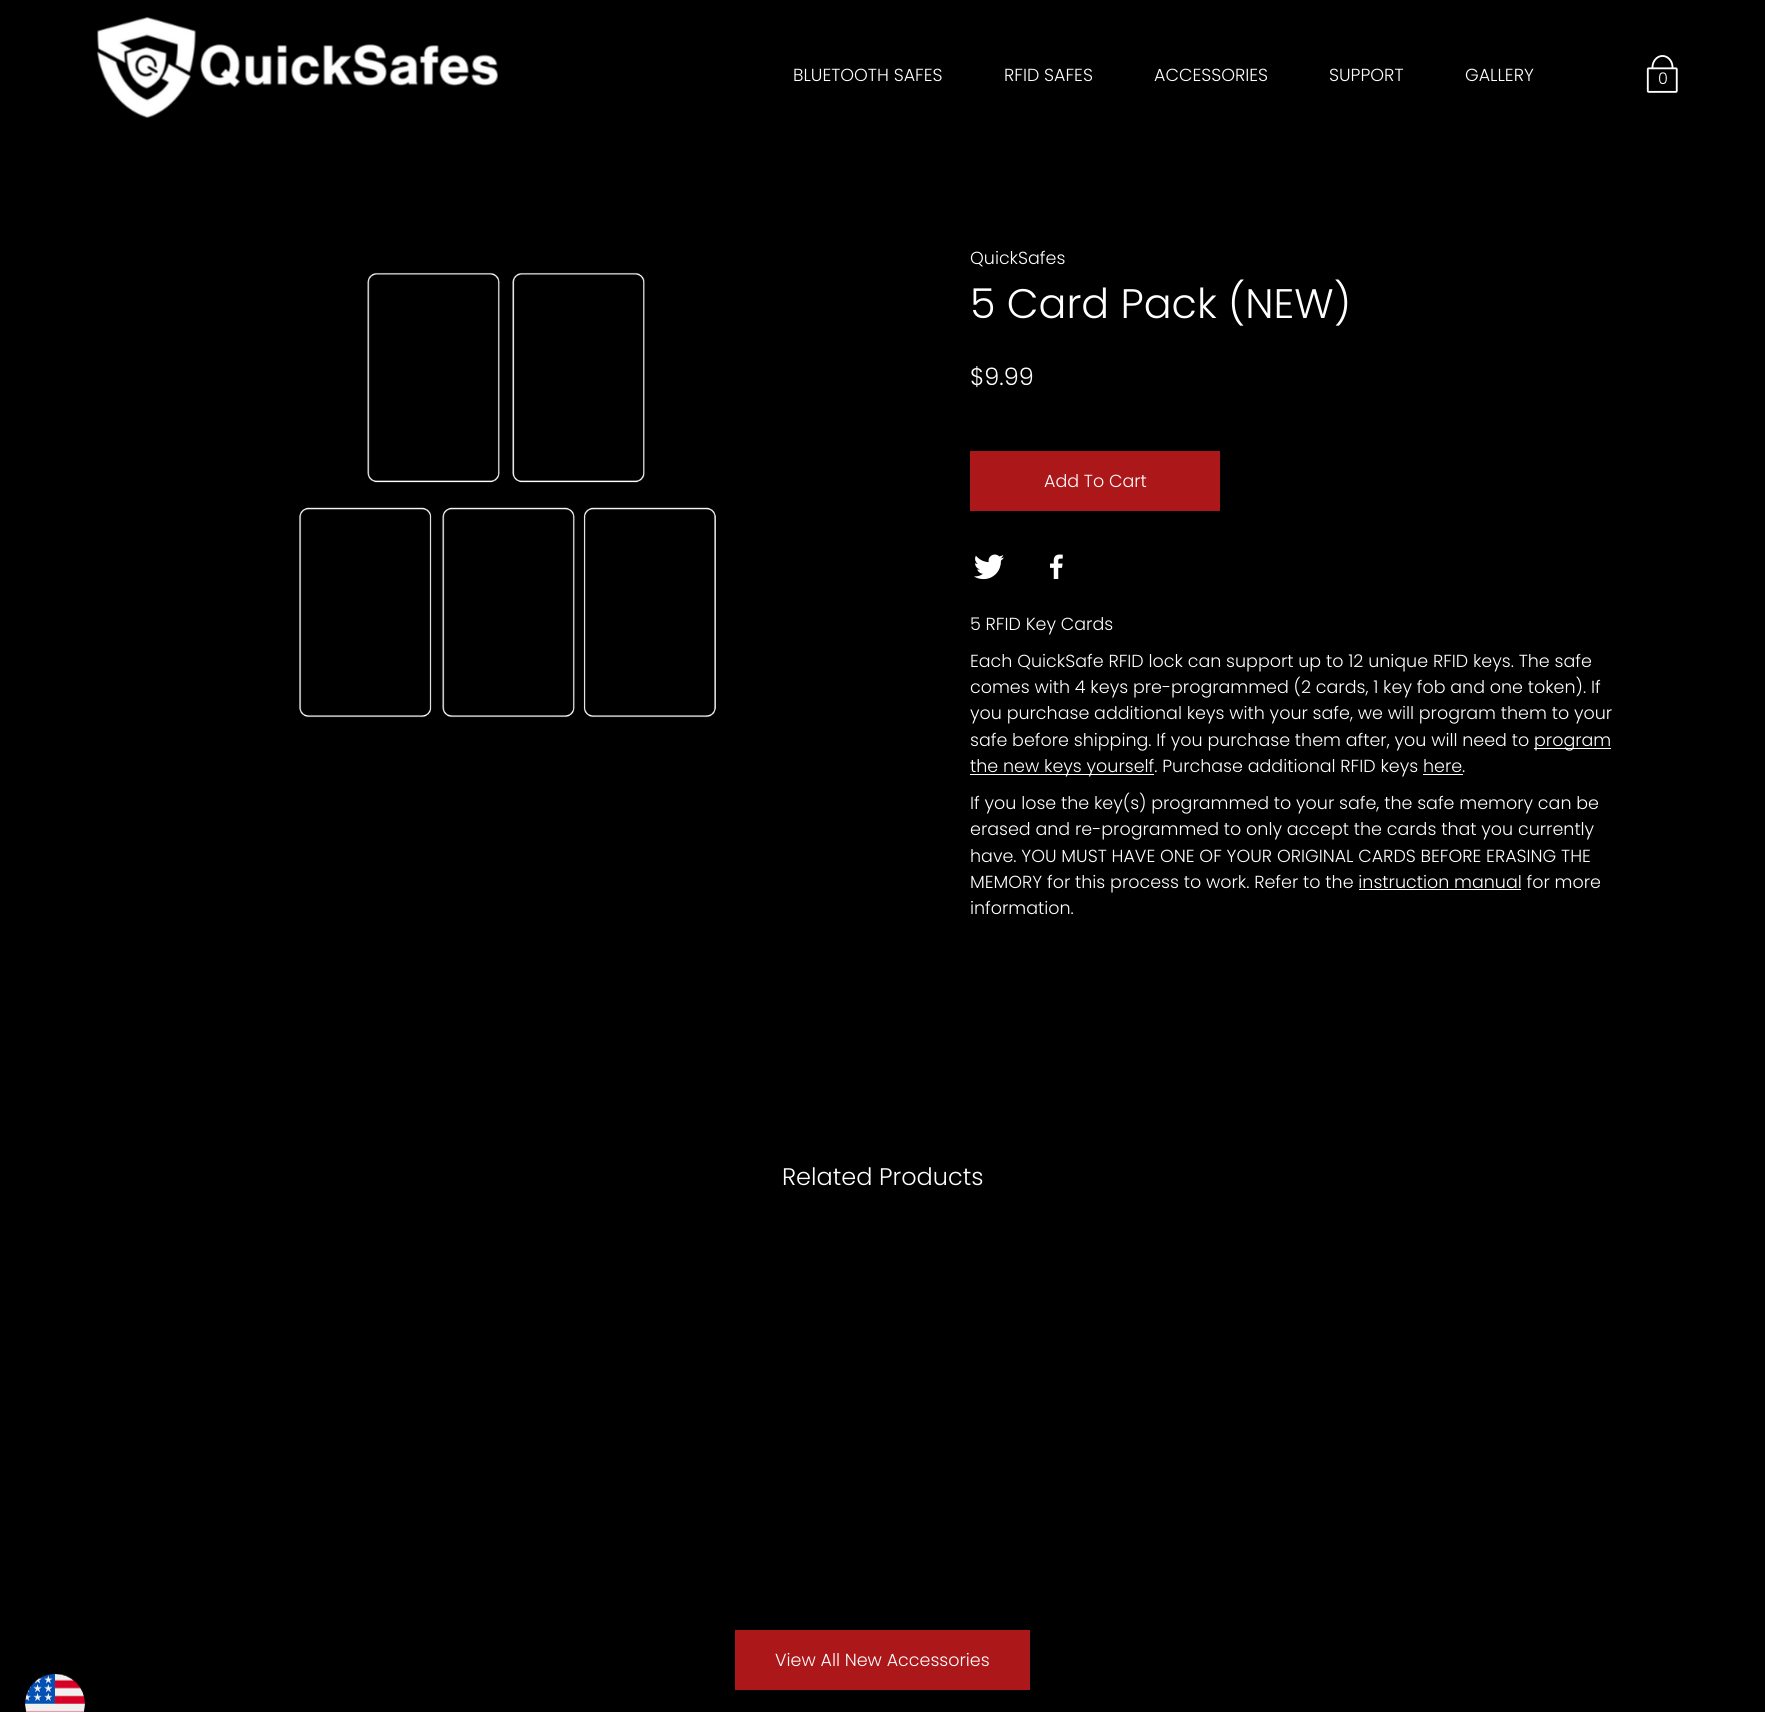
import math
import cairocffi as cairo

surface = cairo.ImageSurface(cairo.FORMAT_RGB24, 1765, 1712)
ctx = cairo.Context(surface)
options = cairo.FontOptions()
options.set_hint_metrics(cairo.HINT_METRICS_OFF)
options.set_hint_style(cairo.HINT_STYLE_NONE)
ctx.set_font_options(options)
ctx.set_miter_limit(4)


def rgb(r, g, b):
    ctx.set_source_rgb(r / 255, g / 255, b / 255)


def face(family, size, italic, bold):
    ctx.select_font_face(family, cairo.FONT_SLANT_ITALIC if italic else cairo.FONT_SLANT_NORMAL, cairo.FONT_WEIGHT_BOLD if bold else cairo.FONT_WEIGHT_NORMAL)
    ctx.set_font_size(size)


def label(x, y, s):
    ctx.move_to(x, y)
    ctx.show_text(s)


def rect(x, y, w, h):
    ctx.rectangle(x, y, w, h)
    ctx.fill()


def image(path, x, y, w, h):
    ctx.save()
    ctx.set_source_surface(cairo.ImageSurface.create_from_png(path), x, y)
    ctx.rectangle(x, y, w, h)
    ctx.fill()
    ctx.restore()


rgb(0, 0, 0)
ctx.paint()
image('image0.png', 97, 17, 401, 101)
face('Poppins Light', 17.5, 0, 0)
rgb(255, 255, 255)
label(793, 81, 'BLUETOOTH SAFES')
label(1004, 81, 'RFID SAFES')
label(1154, 81, 'ACCESSORIES')
label(1329, 81, 'SUPPORT')
label(1465, 81, 'GALLERY')
image('image1.png', 1646, 55, 32, 38)
face('Poppins Light', 16, 0, 0)
label(1658, 84, '0')
image('image2.png', 299, 272, 417, 446)
face('Poppins Light', 17.5, 0, 0)
label(970, 264, 'QuickSafes')
face('Poppins Light', 41.25, 0, 0)
label(970, 318, '5 Card Pack (NEW)')
face('Poppins Light', 24, 0, 0)
label(970, 385, '$9.99')
rgb(172, 23, 26)
rect(970, 451, 250, 60)
face('Poppins Light', 17.5, 0, 0)
rgb(255, 255, 255)
label(1044, 487, 'Add To Cart')
image('image3.png', 974, 554, 30, 26)
image('image4.png', 1050, 554, 13, 25)
label(970, 630, '5 RFID Key Cards')
label(970, 667, 'Each QuickSafe RFID lock can support up to 12 unique RFID keys. The safe')
label(970, 693, 'comes with 4 keys pre-programmed (2 cards, 1 key fob and one token). If')
label(970, 719, 'you purchase additional keys with your safe, we will program them to your')
label(970, 746, 'safe before shipping. If you purchase them after, you will need to')
rect(1534, 748, 77, 1)
label(1534, 746, 'program')
rect(970, 774, 184, 1)
label(970, 772, 'the new keys yourself. Purchase additional RFID keys here.')
rect(1423, 774, 40, 1)
label(970, 809, 'If you lose the key(s) programmed to your safe, the safe memory can be')
label(970, 835, 'erased and re-programmed to only accept the cards that you currently')
label(970, 862, 'have. YOU MUST HAVE ONE OF YOUR ORIGINAL CARDS BEFORE ERASING THE')
label(970, 888, 'MEMORY for this process to work. Refer to the instruction manual for more')
rect(1359, 889, 162, 1)
label(970, 914, 'information.')
face('Poppins Light', 24, 0, 0)
label(782, 1185, 'Related Products')
rgb(172, 23, 26)
rect(735, 1630, 295, 60)
face('Poppins Light', 17.5, 0, 0)
rgb(255, 255, 255)
label(775, 1666, 'View All New Accessories')
image('image5.png', 25, 1674, 60, 38)
surface.write_to_png('render.png')
